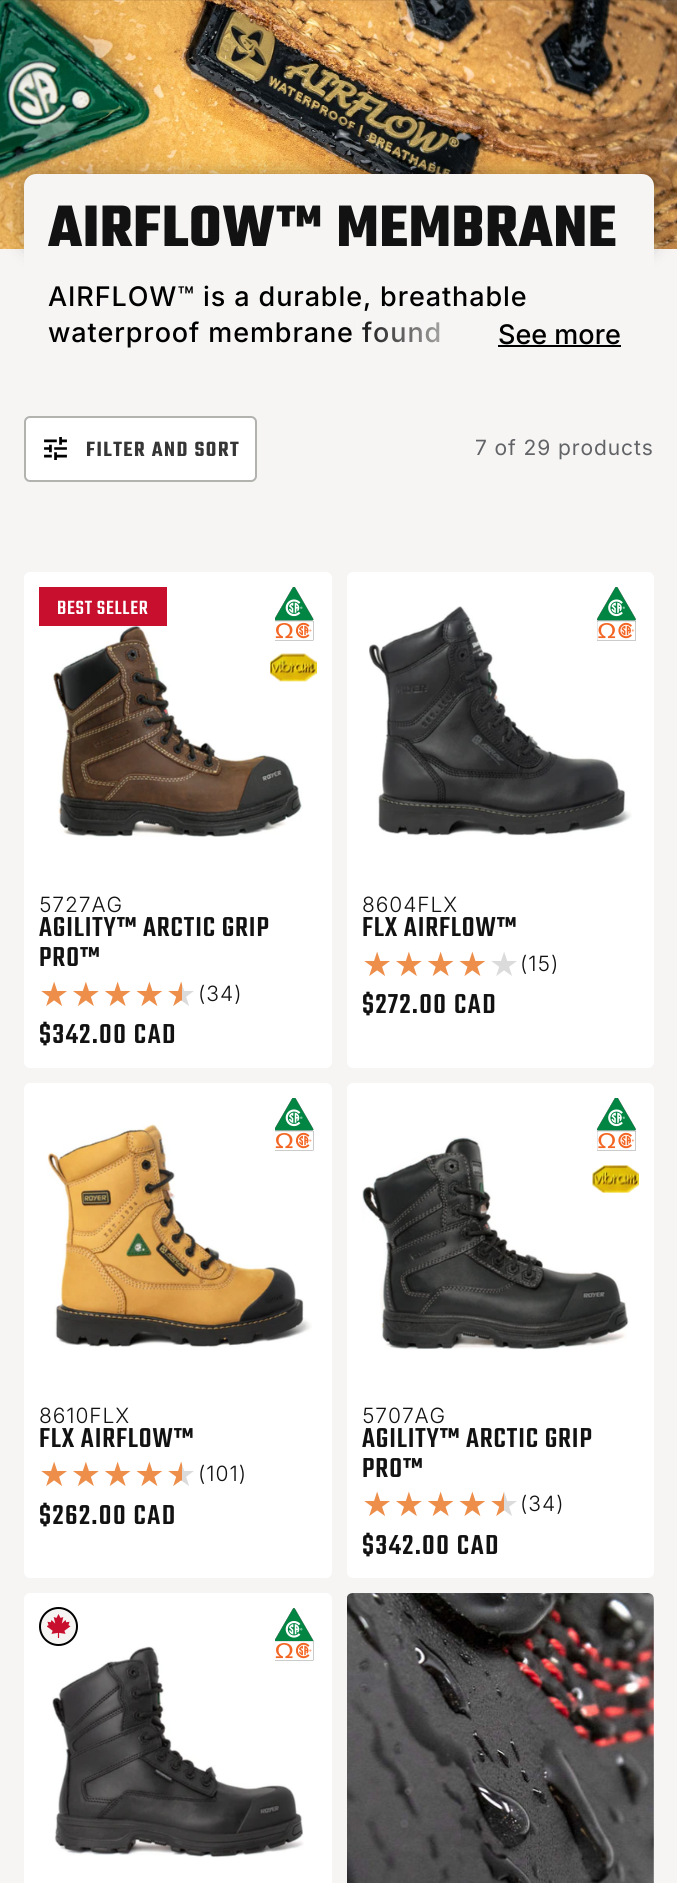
import math
import cairocffi as cairo

surface = cairo.ImageSurface(cairo.FORMAT_RGB24, 677, 1883)
ctx = cairo.Context(surface)
options = cairo.FontOptions()
options.set_hint_metrics(cairo.HINT_METRICS_OFF)
options.set_hint_style(cairo.HINT_STYLE_NONE)
ctx.set_font_options(options)
ctx.set_miter_limit(4)


def rgb(r, g, b):
    ctx.set_source_rgb(r / 255, g / 255, b / 255)


def face(family, size, italic, bold):
    ctx.select_font_face(family, cairo.FONT_SLANT_ITALIC if italic else cairo.FONT_SLANT_NORMAL, cairo.FONT_WEIGHT_BOLD if bold else cairo.FONT_WEIGHT_NORMAL)
    ctx.set_font_size(size)


def label(x, y, s):
    ctx.move_to(x, y)
    ctx.show_text(s)


def tracked(x, y, s, letter, word):
    ctx.move_to(x, y)
    for ch in s:
        ctx.show_text(ch)
        ctx.rel_move_to(letter + word * (ch == ' '), 0)


def rect(x, y, w, h):
    ctx.rectangle(x, y, w, h)
    ctx.fill()


def rrect(x, y, w, h, r):
    ctx.new_sub_path()
    for i, (u, v) in enumerate([(x + w - r, y + h - r), (x + r, y + h - r), (x + r, y + r), (x + w - r, y + r)]):
        ctx.arc(u, v, r, i * math.pi / 2, (i + 1) * math.pi / 2)
    ctx.close_path()


def soft_shadow(x, y, w, h, r, blur, alpha):
    ctx.push_group_with_content(cairo.CONTENT_ALPHA)
    ctx.set_operator(cairo.OPERATOR_SOURCE)
    for i in range(15, -16, -2):
        e = blur * i / 6
        if min(w, h) + 2 * e > 0:
            ctx.set_source_rgba(0, 0, 0, alpha * math.erfc((i - 1) / 8.5) / 2)
            rrect(x - e, y - e, w + 2 * e, h + 2 * e, max(0, min(r + e + blur * .6, min(w, h) / 2 + e)))
            ctx.fill()
    ctx.mask(ctx.pop_group())


def image(path, x, y, w, h):
    ctx.save()
    ctx.set_source_surface(cairo.ImageSurface.create_from_png(path), x, y)
    ctx.rectangle(x, y, w, h)
    ctx.fill()
    ctx.restore()


rgb(246, 245, 244)
ctx.paint()
image('image0.png', 0, 0, 677, 249)
ctx.set_source_rgba(0.071, 0.071, 0.071, 0.08)
rect(0, 0, 677, 1)
rgb(0, 0, 0)
soft_shadow(29, 179, 621, 66, 8, 11, 0.53)
rgb(246, 245, 244)
rrect(24, 174, 630, 204, 12)
ctx.fill()
face('Teko', 63, 0, 1)
rgb(18, 18, 18)
tracked(48, 246, 'AIRFLOW™ MEMBRANE', 0.9, 0)
face('Inter Medium', 27, 0, 0)
rgb(0, 0, 0)
tracked(48, 306, 'AIRFLOW™ is a durable, breathable', 0.9, 0)
tracked(48, 342, 'waterproof membrane found', 0.9, 0)
gradient = cairo.LinearGradient(348, 335, 630, 335)
gradient.add_color_stop_rgba(0, 0.965, 0.961, 0.957, 0)
gradient.add_color_stop_rgba(0.5, 0.965, 0.961, 0.957, 1)
gradient.add_color_stop_rgba(1, 0.965, 0.961, 0.957, 1)
ctx.set_source(gradient)
rect(351, 321, 89, 22)
rgb(0, 0, 0)
label(498, 344, 'See more')
rect(498, 345, 123, 2)
rgb(255, 255, 255)
rrect(25, 417, 231, 64, 5)
ctx.fill_preserve()
rgb(178, 178, 175)
ctx.stroke()
image('image1.png', 44, 437, 23, 23)
face('Teko SemiBold', 22.5, 0, 0)
rgb(54, 54, 54)
tracked(86, 456, 'FILTER AND SORT', 1.5, 0)
face('Inter', 21, 0, 0)
rgb(97, 99, 102)
tracked(475, 455, '7 of 29 products', 0.9, 0)
rgb(255, 255, 255)
rrect(24, 572, 308, 496, 6)
ctx.fill()
image('image5.png', 51, 624, 251, 213)
rgb(200, 16, 46)
rect(39, 587, 128, 39)
face('Teko Medium', 21, 0, 0)
rgb(255, 255, 255)
tracked(57, 614, 'BEST SELLER', 0.75, 0)
image('image2.png', 275, 587, 39, 34)
image('image3.png', 275, 621, 39, 20)
image('image4.png', 270, 653, 47, 29)
face('Inter Light', 21, 0, 0)
rgb(18, 18, 18)
tracked(39, 912, '5727AG', 0.9, 0)
face('Teko Medium', 30, 0, 0)
tracked(39, 936, 'AGILITY™ ARCTIC GRIP', 0.9, 0)
tracked(39, 966, 'PRO™', 0.9, 0)
face('DejaVu Sans', 33.75, 0, 0)
gradient = cairo.LinearGradient(39, 994, 198, 994)
gradient.add_color_stop_rgba(0.9, 0.929, 0.557, 0.294, 1)
gradient.add_color_stop_rgba(0.9, 0.859, 0.859, 0.859, 1)
ctx.set_source(gradient)
tracked(39, 1006, '★★★★★', 1.5, 0)
face('Inter Light', 21, 0, 0)
rgb(18, 18, 18)
tracked(198, 1001, '(34)', 1, 0)
face('Teko Medium', 30, 0, 0)
tracked(39, 1043, '$342.00 CAD', 1.5, 0)
rgb(255, 255, 255)
rrect(347, 572, 307, 496, 6)
ctx.fill()
image('image8.png', 369, 606, 263, 230)
image('image6.png', 597, 587, 39, 34)
image('image7.png', 597, 621, 39, 20)
face('Inter Light', 21, 0, 0)
rgb(18, 18, 18)
tracked(362, 912, '8604FLX', 0.9, 0)
face('Teko Medium', 30, 0, 0)
tracked(362, 936, 'FLX AIRFLOW™', 0.9, 0)
face('DejaVu Sans', 33.75, 0, 0)
gradient = cairo.LinearGradient(362, 964, 520, 964)
gradient.add_color_stop_rgba(0.8, 0.929, 0.557, 0.294, 1)
gradient.add_color_stop_rgba(0.8, 0.859, 0.859, 0.859, 1)
ctx.set_source(gradient)
tracked(362, 976, '★★★★★', 1.5, 0)
face('Inter Light', 21, 0, 0)
rgb(18, 18, 18)
tracked(520, 971, '(15)', 1, 0)
face('Teko Medium', 30, 0, 0)
tracked(362, 1013, '$272.00 CAD', 1.5, 0)
rgb(255, 255, 255)
rrect(24, 1083, 308, 495, 6)
ctx.fill()
image('image10.png', 47, 1124, 265, 224)
image('image9.png', 275, 1098, 39, 33)
image('image3.png', 275, 1131, 39, 20)
face('Inter Light', 21, 0, 0)
rgb(18, 18, 18)
tracked(39, 1423, '8610FLX', 0.9, 0)
face('Teko Medium', 30, 0, 0)
tracked(39, 1447, 'FLX AIRFLOW™', 0.9, 0)
face('DejaVu Sans', 33.75, 0, 0)
gradient = cairo.LinearGradient(39, 1475, 198, 1475)
gradient.add_color_stop_rgba(0.9, 0.929, 0.557, 0.294, 1)
gradient.add_color_stop_rgba(0.9, 0.859, 0.859, 0.859, 1)
ctx.set_source(gradient)
tracked(39, 1486, '★★★★★', 1.5, 0)
face('Inter Light', 21, 0, 0)
rgb(18, 18, 18)
tracked(198, 1481, '(101)', 1, 0)
face('Teko Medium', 30, 0, 0)
tracked(39, 1524, '$262.00 CAD', 1.5, 0)
rgb(255, 255, 255)
rrect(347, 1083, 307, 495, 6)
ctx.fill()
image('image11.png', 597, 1098, 39, 33)
image('image13.png', 362, 1136, 267, 214)
image('image7.png', 597, 1131, 39, 20)
image('image12.png', 592, 1165, 47, 28)
face('Inter Light', 21, 0, 0)
rgb(18, 18, 18)
tracked(362, 1423, '5707AG', 0.9, 0)
face('Teko Medium', 30, 0, 0)
tracked(362, 1447, 'AGILITY™ ARCTIC GRIP', 0.9, 0)
tracked(362, 1477, 'PRO™', 0.9, 0)
face('DejaVu Sans', 33.75, 0, 0)
gradient = cairo.LinearGradient(362, 1505, 520, 1505)
gradient.add_color_stop_rgba(0.9, 0.929, 0.557, 0.294, 1)
gradient.add_color_stop_rgba(0.9, 0.859, 0.859, 0.859, 1)
ctx.set_source(gradient)
tracked(362, 1516, '★★★★★', 1.5, 0)
face('Inter Light', 21, 0, 0)
rgb(18, 18, 18)
tracked(520, 1511, '(34)', 1, 0)
face('Teko Medium', 30, 0, 0)
tracked(362, 1554, '$342.00 CAD', 1.5, 0)
rgb(255, 255, 255)
rrect(24, 1593, 308, 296, 6)
ctx.fill()
rgb(246, 245, 244)
ctx.arc(59, 1626, 18, 0, 2 * math.pi)
ctx.fill()
image('image14.png', 47, 1614, 24, 24)
ctx.arc(58.5, 1626.5, 18.5, 0, 2 * math.pi)
rgb(0, 0, 0)
ctx.stroke()
image('image15.png', 275, 1608, 39, 33)
image('image16.png', 52, 1646, 252, 212)
image('image3.png', 275, 1641, 39, 20)
rgb(255, 255, 255)
rrect(347, 1593, 307, 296, 6)
ctx.fill()
image('image17.png', 347, 1593, 307, 290)
surface.write_to_png('render.png')
